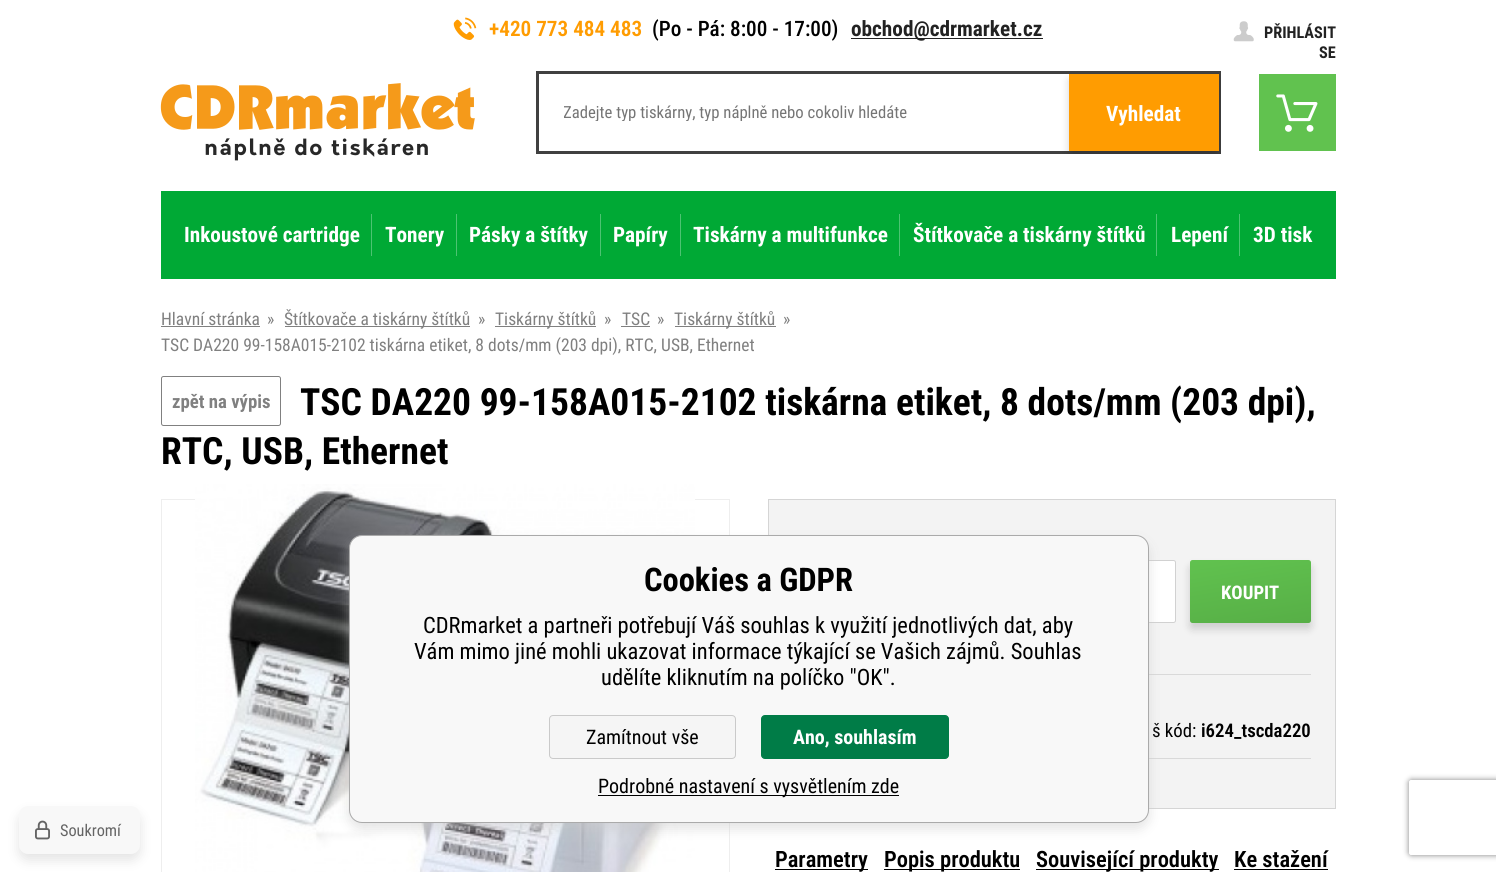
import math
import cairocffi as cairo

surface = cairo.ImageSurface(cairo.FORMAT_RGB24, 1496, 872)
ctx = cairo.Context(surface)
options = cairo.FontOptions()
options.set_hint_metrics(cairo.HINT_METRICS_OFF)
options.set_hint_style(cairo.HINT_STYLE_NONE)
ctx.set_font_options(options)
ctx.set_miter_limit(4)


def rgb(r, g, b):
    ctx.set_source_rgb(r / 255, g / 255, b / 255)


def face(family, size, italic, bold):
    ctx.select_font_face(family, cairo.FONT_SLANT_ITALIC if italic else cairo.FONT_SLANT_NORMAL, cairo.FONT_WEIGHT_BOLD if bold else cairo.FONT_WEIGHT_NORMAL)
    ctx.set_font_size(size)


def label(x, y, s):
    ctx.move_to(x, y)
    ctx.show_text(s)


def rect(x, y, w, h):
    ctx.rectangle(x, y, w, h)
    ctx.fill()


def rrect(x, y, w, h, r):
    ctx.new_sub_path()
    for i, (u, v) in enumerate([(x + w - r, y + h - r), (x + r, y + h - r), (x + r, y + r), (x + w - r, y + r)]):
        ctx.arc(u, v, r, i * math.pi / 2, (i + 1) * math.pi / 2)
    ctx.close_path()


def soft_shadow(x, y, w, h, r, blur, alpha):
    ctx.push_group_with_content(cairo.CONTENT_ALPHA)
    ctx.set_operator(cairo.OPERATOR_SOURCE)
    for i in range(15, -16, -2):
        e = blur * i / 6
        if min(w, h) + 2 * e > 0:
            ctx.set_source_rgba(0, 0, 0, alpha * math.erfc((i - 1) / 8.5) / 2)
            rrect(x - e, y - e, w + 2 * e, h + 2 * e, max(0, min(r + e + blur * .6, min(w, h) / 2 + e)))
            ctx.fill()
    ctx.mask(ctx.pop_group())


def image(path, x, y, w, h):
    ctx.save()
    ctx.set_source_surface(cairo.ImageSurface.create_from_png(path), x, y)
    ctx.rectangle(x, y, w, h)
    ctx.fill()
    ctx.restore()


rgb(255, 255, 255)
ctx.paint()
image('image0.png', 453, 17, 24, 23)
face('Roboto Condensed SemiBold', 21.25, 0, 0)
rgb(255, 156, 1)
label(489, 36, '+420 773 484 483')
face('Roboto Condensed Medium', 21.25, 0, 0)
rgb(0, 0, 0)
label(652, 36, '(Po - Pá: 8:00 - 17:00)')
rgb(34, 34, 34)
rect(851, 38, 192, 1)
face('Roboto Condensed', 21.25, 0, 1)
label(851, 36, 'obchod@cdrmarket.cz')
image('image1.png', 1233, 21, 21, 21)
face('Roboto Condensed', 16.25, 0, 1)
label(1264, 38, 'PŘIHLÁSIT')
label(1319, 58, 'SE')
image('image2.png', 160, 83, 315, 78)
ctx.rectangle(537.5, 72.5, 682, 80)
rgb(64, 64, 64)
ctx.set_line_width(3)
ctx.stroke()
ctx.save()
ctx.rectangle(564, 103, 480, 18)
ctx.clip()
face('Roboto Condensed', 16.7, 0, 0)
rgb(117, 117, 117)
label(563, 118, 'Zadejte typ tiskárny, typ náplně nebo cokoliv hledáte')
ctx.restore()
ctx.save()
ctx.rectangle(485, 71, 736, 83)
ctx.clip()
rgb(0, 0, 0)
soft_shadow(1069, 80, 150, 78, 0, 4.5, 0.16)
ctx.restore()
rgb(255, 156, 1)
rect(1069, 74, 150, 77)
face('Roboto Condensed', 21.25, 0, 1)
rgb(255, 255, 255)
label(1106, 121, 'Vyhledat')
rgb(97, 194, 79)
rect(1259, 74, 77, 77)
image('image3.png', 1276, 94, 42, 38)
rgb(0, 169, 53)
rect(161, 191, 1175, 88)
rgb(255, 255, 255)
label(184, 242, 'Inkoustové cartridge')
rgb(77, 195, 114)
rect(371, 214, 1, 42)
rgb(255, 255, 255)
label(385, 242, 'Tonery')
rgb(77, 195, 114)
rect(456, 214, 1, 42)
rgb(255, 255, 255)
label(469, 242, 'Pásky a štítky')
rgb(77, 195, 114)
rect(600, 214, 1, 42)
rgb(255, 255, 255)
label(613, 242, 'Papíry')
rgb(77, 195, 114)
rect(680, 214, 1, 42)
rgb(255, 255, 255)
label(693, 242, 'Tiskárny a multifunkce')
rgb(77, 195, 114)
rect(899, 214, 1, 42)
rgb(255, 255, 255)
label(913, 242, 'Štítkovače a tiskárny štítků')
rgb(77, 195, 114)
rect(1156, 214, 1, 42)
rgb(255, 255, 255)
label(1171, 242, 'Lepení')
rgb(77, 195, 114)
rect(1239, 214, 1, 42)
rgb(255, 255, 255)
label(1253, 242, '3D tisk')
face('Roboto Condensed', 17.5, 0, 0)
rgb(128, 128, 128)
label(161, 325, 'Hlavní stránka')
rect(161, 326, 99, 1)
label(267, 325, '»')
rect(285, 326, 185, 1)
label(284, 325, 'Štítkovače a tiskárny štítků')
label(478, 325, '»')
rect(495, 326, 101, 1)
label(495, 325, 'Tiskárny štítků')
label(604, 325, '»')
label(622, 325, 'TSC')
rect(621, 326, 29, 1)
label(657, 325, '»')
rect(675, 326, 101, 1)
label(674, 325, 'Tiskárny štítků')
label(783, 325, '»')
label(161, 351, 'TSC DA220 99-158A015-2102 tiskárna etiket, 8 dots/mm (203 dpi), RTC, USB, Ethernet')
face('Roboto Condensed', 37.5, 0, 1)
rgb(0, 0, 0)
label(300, 415, 'TSC DA220 99-158A015-2102 tiskárna etiket, 8 dots/mm (203 dpi),')
label(161, 464, 'RTC, USB, Ethernet')
rrect(161.5, 376.5, 119, 49, 2)
rgb(128, 128, 128)
ctx.set_line_width(1)
ctx.stroke()
face('Roboto Condensed', 18.75, 0, 1)
label(172, 408, 'zpět na výpis')
ctx.rectangle(161.5, 499.5, 568, 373)
rgb(238, 238, 238)
ctx.stroke()
image('image4.png', 195, 484, 500, 388)
rgb(243, 243, 243)
ctx.rectangle(768.5, 499.5, 567, 309)
ctx.fill_preserve()
rgb(213, 213, 213)
ctx.stroke()
rgb(217, 217, 217)
rect(1149, 674, 162, 1)
rgb(255, 255, 255)
rrect(1114, 560, 62, 63, 2.5)
ctx.fill()
rrect(1114.5, 560.5, 61, 62, 2)
ctx.set_source_rgba(0, 0, 0, 0.18)
ctx.stroke()
rgb(0, 0, 0)
soft_shadow(1190, 566, 121, 63, 2.5, 4.5, 0.16)
gradient = cairo.LinearGradient(1257, 631, 1244, 551)
gradient.add_color_stop_rgba(0, 0.341, 0.686, 0.275, 1)
gradient.add_color_stop_rgba(1, 0.38, 0.761, 0.31, 1)
ctx.set_source(gradient)
rrect(1190, 560, 121, 63, 2.5)
ctx.fill()
rgb(255, 255, 255)
label(1221, 599, 'KOUPIT')
rgb(217, 217, 217)
rect(1149, 758, 162, 1)
face('Roboto Condensed', 18.75, 0, 0)
rgb(0, 0, 0)
label(1152, 737, 'š kód:')
face('Roboto Condensed SemiBold', 18.75, 0, 0)
label(1201, 737, 'i624_tscda220')
rect(775, 869, 93, 1)
face('Roboto Condensed SemiBold', 22.5, 0, 0)
label(775, 867, 'Parametry')
rect(884, 869, 136, 1)
label(884, 867, 'Popis produktu')
rect(1036, 869, 183, 1)
label(1036, 867, 'Související produkty')
label(1234, 867, 'Ke stažení')
rect(1234, 869, 94, 1)
rgb(200, 200, 200)
soft_shadow(349, 541, 800, 288, 13, 6, 0.5)
rgb(248, 248, 248)
rrect(349.5, 535.5, 799, 287, 12.5)
ctx.fill_preserve()
rgb(170, 170, 170)
ctx.stroke()
face('Roboto Condensed', 32.5, 0, 1)
rgb(0, 0, 0)
label(644, 591, 'Cookies a GDPR')
face('Roboto Condensed', 22.5, 0, 0)
label(423, 633, 'CDRmarket a partneři potřebují Váš souhlas k využití jednotlivých dat, aby')
label(414, 659, 'Vám mimo jiné mohli ukazovat informace týkající se Vašich zájmů. Souhlas')
label(601, 685, 'udělíte kliknutím na políčko "OK".')
rgb(245, 245, 245)
rrect(549.5, 715.5, 186, 43, 3.5)
ctx.fill_preserve()
rgb(202, 202, 202)
ctx.stroke()
face('Roboto Condensed', 20, 0, 0)
rgb(0, 0, 0)
label(586, 744, 'Zamítnout vše')
rgb(0, 124, 71)
rrect(761.5, 715.5, 187, 43, 3.5)
ctx.fill_preserve()
ctx.stroke()
face('Roboto Condensed', 20, 0, 1)
rgb(255, 255, 255)
label(793, 744, 'Ano, souhlasím')
rgb(0, 0, 0)
rect(598, 795, 301, 1)
face('Roboto Condensed', 20, 0, 0)
label(598, 793, 'Podrobné nastavení s vysvětlením zde')
rgb(200, 200, 200)
soft_shadow(19, 813, 121, 47, 9, 6, 0.5)
rgb(248, 248, 248)
rrect(19, 806, 121, 48, 9)
ctx.fill()
image('image5.png', 35, 820, 15, 20)
face('Roboto Condensed', 16.25, 0, 0)
rgb(100, 100, 100)
label(60, 836, 'Soukromí')
ctx.save()
ctx.set_fill_rule(cairo.FILL_RULE_EVEN_ODD)
ctx.new_path()
ctx.move_to(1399, 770)
ctx.line_to(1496, 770)
ctx.line_to(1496, 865)
ctx.line_to(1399, 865)
ctx.close_path()
ctx.move_to(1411.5, 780)
ctx.line_to(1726.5, 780)
ctx.curve_to(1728, 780, 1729, 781, 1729, 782.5)
ctx.line_to(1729, 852.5)
ctx.curve_to(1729, 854, 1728, 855, 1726.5, 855)
ctx.line_to(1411.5, 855)
ctx.curve_to(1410, 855, 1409, 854, 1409, 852.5)
ctx.line_to(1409, 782.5)
ctx.curve_to(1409, 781, 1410, 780, 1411.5, 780)
ctx.close_path()
ctx.clip()
rgb(128, 128, 128)
soft_shadow(1409, 780, 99, 75, 2.5, 3, 1)
ctx.restore()
surface.write_to_png('render.png')
